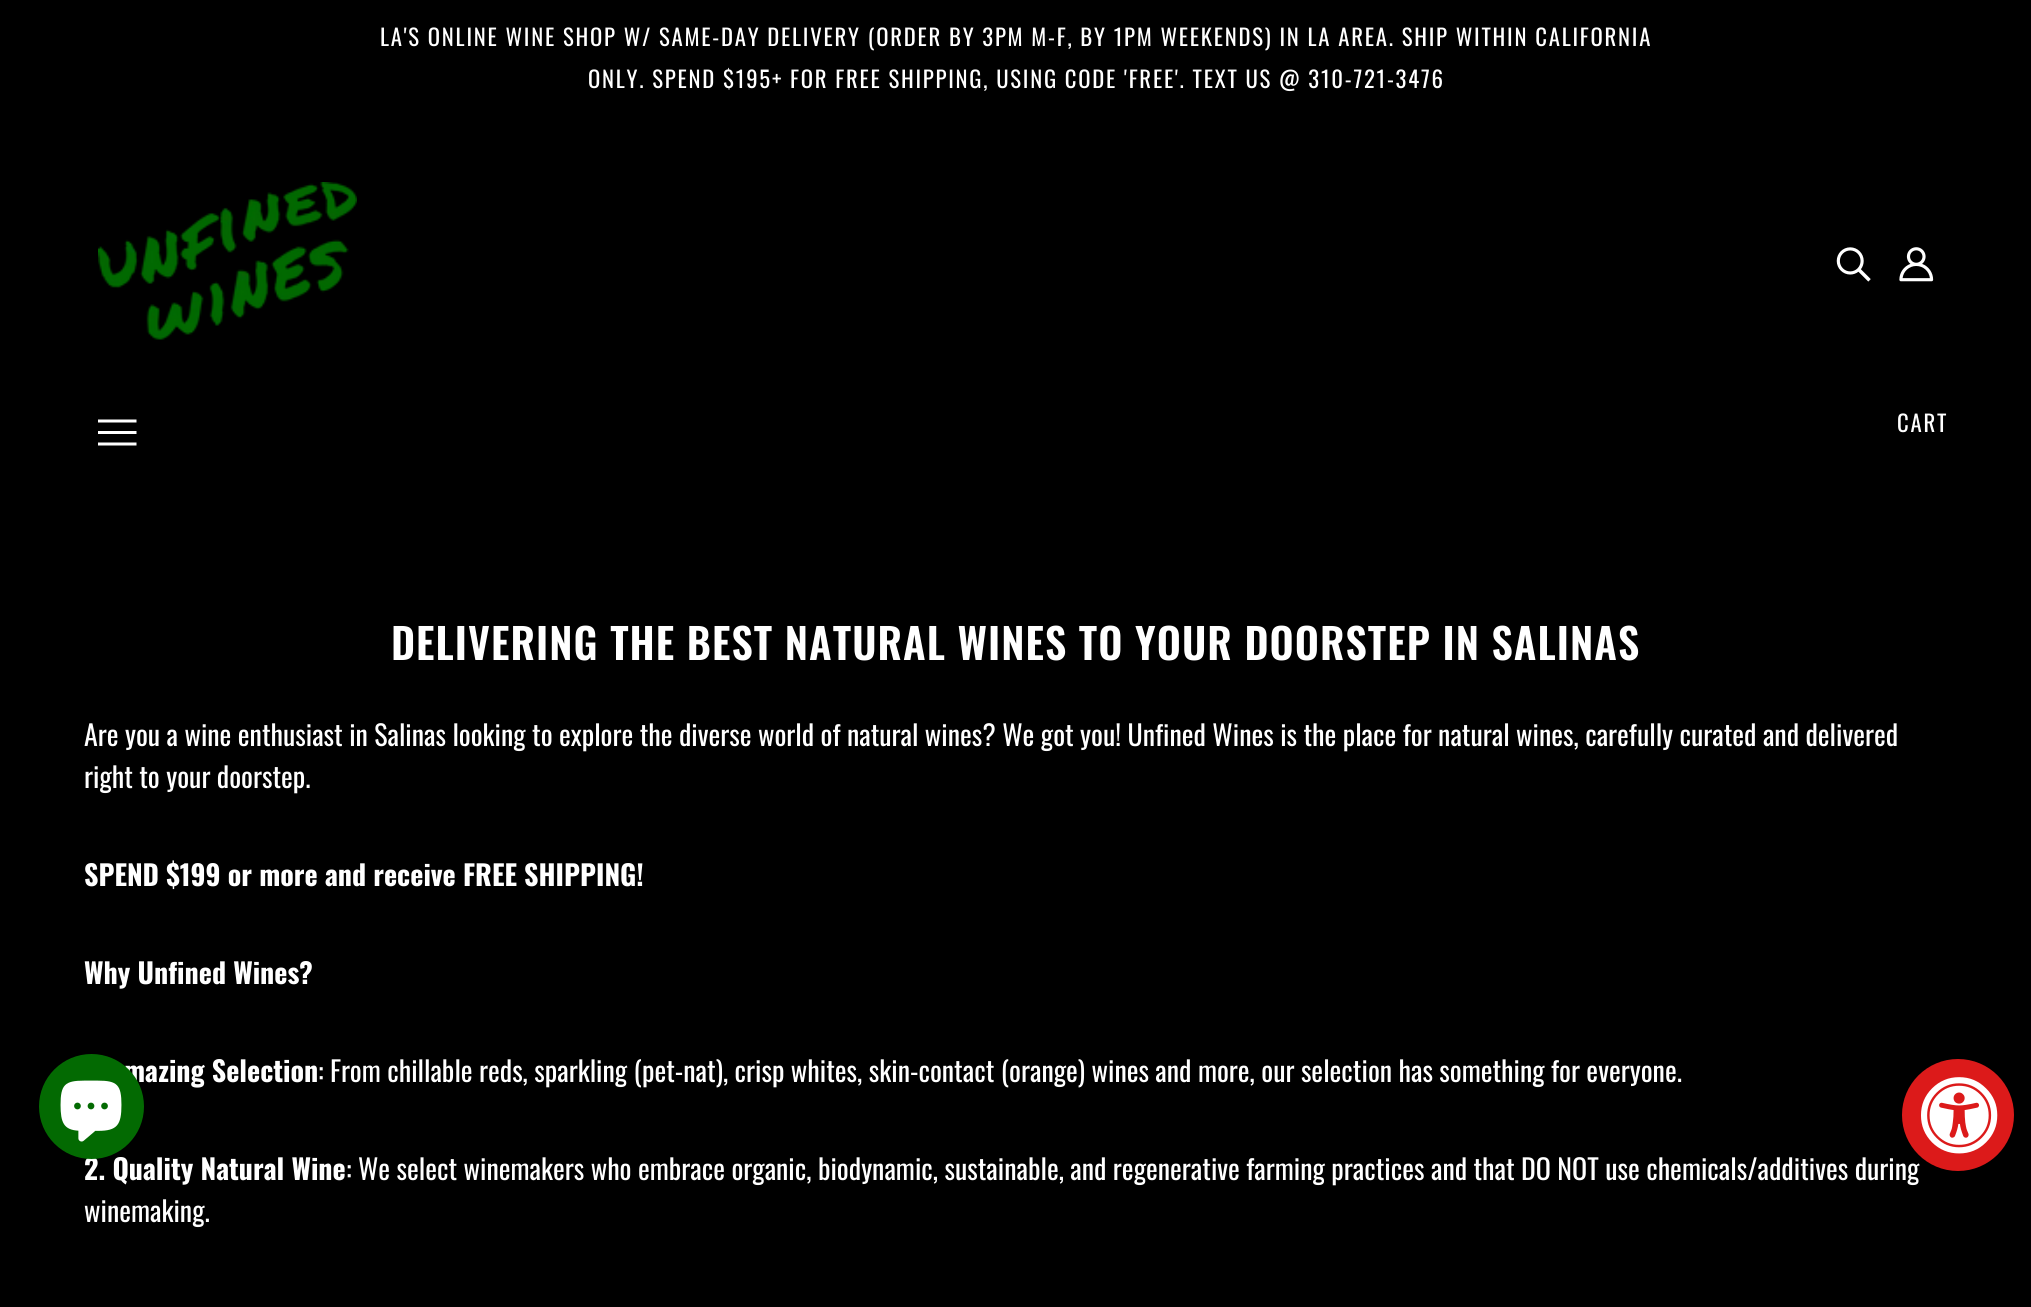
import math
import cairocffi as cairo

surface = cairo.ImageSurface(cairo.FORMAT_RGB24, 2031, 1307)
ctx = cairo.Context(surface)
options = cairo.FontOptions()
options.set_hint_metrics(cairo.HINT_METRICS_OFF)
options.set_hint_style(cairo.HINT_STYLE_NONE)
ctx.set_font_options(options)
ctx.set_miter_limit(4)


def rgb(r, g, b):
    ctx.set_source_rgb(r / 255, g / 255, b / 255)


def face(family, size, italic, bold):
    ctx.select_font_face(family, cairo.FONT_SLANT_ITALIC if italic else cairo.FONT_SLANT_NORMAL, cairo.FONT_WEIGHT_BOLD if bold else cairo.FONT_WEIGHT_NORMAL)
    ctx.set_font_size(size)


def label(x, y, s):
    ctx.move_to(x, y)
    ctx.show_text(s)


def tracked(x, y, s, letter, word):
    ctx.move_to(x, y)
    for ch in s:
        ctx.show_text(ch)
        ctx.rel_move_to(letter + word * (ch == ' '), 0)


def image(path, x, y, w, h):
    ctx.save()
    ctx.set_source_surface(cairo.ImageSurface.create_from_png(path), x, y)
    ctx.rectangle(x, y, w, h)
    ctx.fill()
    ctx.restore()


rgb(0, 0, 0)
ctx.paint()
face('Oswald', 22.75, 0, 0)
rgb(255, 255, 255)
tracked(380, 46, 'LA\'S ONLINE WINE SHOP W/ SAME-DAY DELIVERY (ORDER BY 3PM M-F, BY 1PM WEEKENDS) IN LA AREA. SHIP WITHIN CALIFORNIA', 1.75, 0)
tracked(588, 88, 'ONLY. SPEND $195+ FOR FREE SHIPPING, USING CODE \'FREE\'. TEXT US @ 310-721-3476', 1.75, 0)
image('image0.png', 98, 182, 259, 158)
image('image1.png', 1836, 247, 35, 35)
image('image2.png', 1899, 247, 35, 35)
ctx.new_path()
ctx.move_to(98, 422.5)
ctx.line_to(98, 419.5)
ctx.line_to(136.5, 419.5)
ctx.line_to(136.5, 422.5)
ctx.close_path()
ctx.move_to(98, 434)
ctx.line_to(98, 431)
ctx.line_to(136.5, 431)
ctx.line_to(136.5, 434)
ctx.close_path()
ctx.move_to(98, 445.5)
ctx.line_to(98, 442.5)
ctx.line_to(136.5, 442.5)
ctx.line_to(136.5, 445.5)
ctx.close_path()
ctx.fill()
tracked(1897, 432, 'CART', 1.75, 0)
face('Oswald SemiBold', 42, 0, 0)
tracked(391, 660, 'DELIVERING THE BEST NATURAL WINES TO YOUR DOORSTEP IN SALINAS', 1.05, 0)
face('Oswald', 28, 0, 0)
label(84, 746, 'Are you a wine enthusiast in Salinas looking to explore the diverse world of natural wines? We got you! Unfined Wines is the place for natural wines, carefully curated and delivered')
label(84, 788, 'right to your doorstep.')
face('Oswald', 28, 0, 1)
label(84, 886, 'SPEND $199 or more and receive FREE SHIPPING!')
label(84, 984, 'Why Unfined Wines?')
label(124, 1082, 'mazing Selection')
face('Oswald', 28, 0, 0)
label(318, 1082, ': From chillable reds, sparkling (pet-nat), crisp whites, skin-contact (orange) wines and more, our selection has something for everyone.')
face('Oswald', 28, 0, 1)
label(84, 1180, '2. Quality Natural Wine')
face('Oswald', 28, 0, 0)
label(346, 1180, ': We select winemakers who embrace organic, biodynamic, sustainable, and regenerative farming practices and that DO NOT use chemicals/additives during')
label(84, 1222, 'winemaking.')
rgb(3, 106, 2)
ctx.new_path()
ctx.arc(91.5, 1106.5, 52.5, 0, 2 * math.pi)
ctx.fill()
image('image3.png', 60, 1080, 62, 62)
rgb(220, 26, 26)
ctx.arc(1958, 1115, 56, 0, 2 * math.pi)
ctx.fill()
image('image4.png', 1921, 1077, 77, 77)
surface.write_to_png('render.png')
